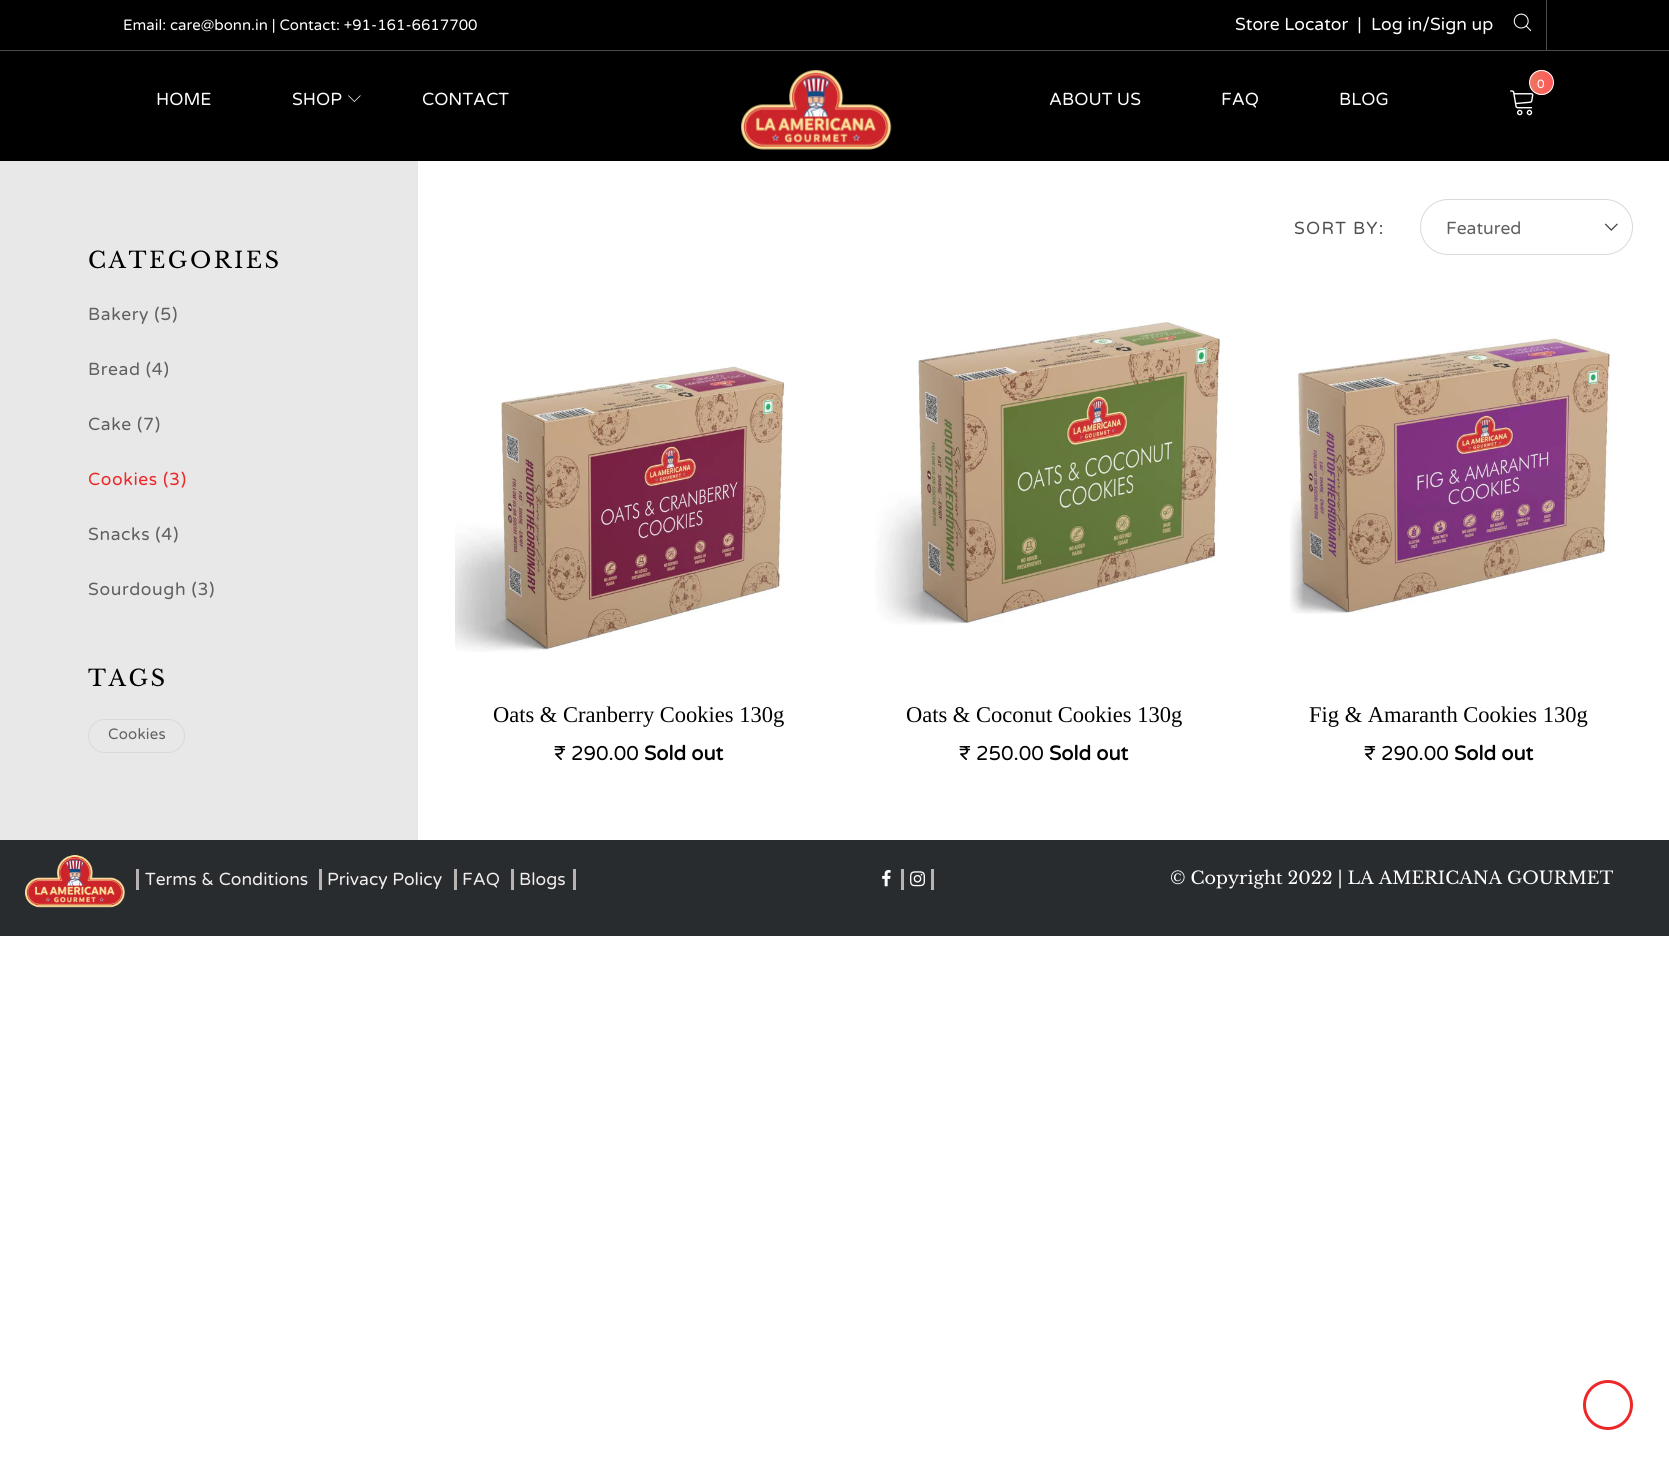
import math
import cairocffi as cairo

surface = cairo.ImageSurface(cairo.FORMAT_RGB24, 1669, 1467)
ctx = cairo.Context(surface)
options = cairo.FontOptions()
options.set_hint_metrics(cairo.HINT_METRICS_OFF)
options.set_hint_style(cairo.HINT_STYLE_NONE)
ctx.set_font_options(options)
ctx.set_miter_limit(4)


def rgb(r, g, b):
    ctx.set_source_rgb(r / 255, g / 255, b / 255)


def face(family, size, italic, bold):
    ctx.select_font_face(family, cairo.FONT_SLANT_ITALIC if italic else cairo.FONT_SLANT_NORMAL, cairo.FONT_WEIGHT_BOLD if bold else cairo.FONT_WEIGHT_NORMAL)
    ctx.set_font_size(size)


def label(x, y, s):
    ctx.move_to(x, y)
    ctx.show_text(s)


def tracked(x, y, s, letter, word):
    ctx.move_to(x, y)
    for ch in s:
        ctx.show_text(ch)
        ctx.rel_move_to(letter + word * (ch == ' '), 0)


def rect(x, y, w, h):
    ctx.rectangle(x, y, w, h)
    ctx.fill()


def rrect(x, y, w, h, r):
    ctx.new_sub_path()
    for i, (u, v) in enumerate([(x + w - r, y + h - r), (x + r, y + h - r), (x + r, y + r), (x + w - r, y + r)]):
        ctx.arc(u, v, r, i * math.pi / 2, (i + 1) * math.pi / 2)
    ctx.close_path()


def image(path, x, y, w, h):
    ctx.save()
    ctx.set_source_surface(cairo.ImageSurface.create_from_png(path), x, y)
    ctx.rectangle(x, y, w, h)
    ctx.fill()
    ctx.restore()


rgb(255, 255, 255)
ctx.paint()
rgb(0, 0, 0)
rect(0, 0, 1669, 161)
rgb(74, 74, 74)
rect(0, 50, 1669, 1)
face('Varela Round', 15, 0, 0)
rgb(255, 255, 255)
label(123, 30, 'Email: care@bonn.in | Contact: +91-161-6617700')
face('Varela Round', 17.5, 0, 0)
label(1235, 30, 'Store Locator  |')
label(1371, 30, 'Log in/Sign up')
rgb(74, 74, 74)
rect(1546, 0, 1, 50)
image('image0.png', 1513, 13, 19, 19)
rgb(255, 255, 255)
label(156, 105, 'HOME')
label(292, 105, 'SHOP')
image('image1.png', 348, 95, 13, 7)
label(422, 105, 'CONTACT')
image('image2.png', 741, 70, 151, 80)
image('image3.png', 1510, 90, 24, 26)
ctx.save()
rrect(1529, 70, 25, 25, 12.5)
ctx.clip()
gradient = cairo.LinearGradient(1530, 83, 1553, 83)
gradient.add_color_stop_rgba(0, 0.933, 0.459, 0.376, 1)
gradient.add_color_stop_rgba(1, 1, 0.345, 0.345, 1)
ctx.set_source(gradient)
rect(1530, 70, 23, 25)
ctx.restore()
ctx.arc(1541.5, 82.5, 12, 0, 2 * math.pi)
ctx.set_line_width(1)
ctx.stroke()
face('Varela Round', 12, 0, 0)
label(1537, 88, '0')
face('Varela Round', 17.5, 0, 0)
label(1049, 105, 'ABOUT US')
label(1221, 105, 'FAQ')
label(1339, 105, 'BLOG')
rgb(232, 232, 232)
rect(0, 161, 418, 679)
face('Libre Baskerville', 22.5, 0, 0)
rgb(0, 0, 0)
tracked(88, 268, 'CATEGORIES', 2.5, 0)
face('Varela Round', 17.5, 0, 0)
rgb(96, 96, 96)
tracked(88, 320, 'Bakery (5)', 0.6, 0)
tracked(88, 375, 'Bread (4)', 0.6, 0)
tracked(88, 430, 'Cake (7)', 0.6, 0)
rgb(237, 40, 40)
tracked(88, 485, 'Cookies (3)', 0.6, 0)
rgb(96, 96, 96)
tracked(88, 540, 'Snacks (4)', 0.6, 0)
tracked(88, 595, 'Sourdough (3)', 0.6, 0)
face('Libre Baskerville', 22.5, 0, 0)
rgb(0, 0, 0)
tracked(88, 686, 'TAGS', 2.5, 0)
rrect(88.5, 719.5, 96, 33, 16.5)
rgb(217, 217, 217)
ctx.stroke()
face('Varela Round', 15, 0, 0)
rgb(96, 96, 96)
tracked(108, 739, 'Cookies', 0.25, 0)
face('Varela Round', 17.5, 0, 0)
rgb(80, 80, 80)
tracked(1294, 234, 'SORT BY:', 1.25, 0)
image('image4.png', 1604, 223, 14, 8)
rrect(1420.5, 199.5, 212, 55, 27.5)
rgb(217, 217, 217)
ctx.stroke()
rgb(96, 96, 96)
label(1446, 234, 'Featured')
image('image5.png', 455, 366, 331, 286)
face('Liberation Serif', 22.5, 0, 0)
rgb(0, 0, 0)
label(493, 722, 'Oats & Cranberry Cookies 130g')
face('Varela Round', 20, 0, 0)
label(554, 760, '₹ 290.00')
face('Varela Round', 20, 0, 1)
label(644, 760, 'Sold out')
image('image6.png', 875, 319, 348, 306)
face('Liberation Serif', 22.5, 0, 0)
label(906, 722, 'Oats & Coconut Cookies 130g')
face('Varela Round', 20, 0, 0)
label(959, 760, '₹ 250.00')
face('Varela Round', 20, 0, 1)
label(1049, 760, 'Sold out')
image('image7.png', 1290, 336, 321, 278)
face('Liberation Serif', 22.5, 0, 0)
label(1309, 722, 'Fig & Amaranth Cookies 130g')
face('Varela Round', 20, 0, 0)
label(1364, 760, '₹ 290.00')
face('Varela Round', 20, 0, 1)
label(1454, 760, 'Sold out')
rgb(40, 44, 47)
rect(0, 840, 1669, 96)
image('image8.png', 25, 855, 100, 53)
rgb(184, 178, 178)
rect(136, 869, 3, 21)
face('Varela Round', 17.5, 0, 0)
rgb(242, 237, 237)
label(145, 885, 'Terms & Conditions')
rgb(184, 178, 178)
rect(319, 869, 3, 21)
rgb(242, 237, 237)
label(327, 885, 'Privacy Policy')
rgb(184, 178, 178)
rect(454, 869, 3, 21)
rgb(242, 237, 237)
label(462, 885, 'FAQ')
rgb(184, 178, 178)
rect(511, 869, 3, 21)
rgb(242, 237, 237)
label(519, 885, 'Blogs')
rgb(184, 178, 178)
rect(573, 869, 3, 21)
rect(901, 869, 3, 21)
image('image9.png', 882, 870, 9, 17)
rect(931, 869, 3, 21)
image('image10.png', 910, 871, 15, 16)
face('Libre Baskerville', 17.5, 0, 0)
rgb(255, 255, 255)
label(1170, 884, '© Copyright 2022 | LA AMERICANA GOURMET')
ctx.new_path()
ctx.arc(1608, 1405, 23.5, 0, 2 * math.pi)
rgb(237, 40, 40)
ctx.set_line_width(3)
ctx.stroke()
surface.write_to_png('render.png')
